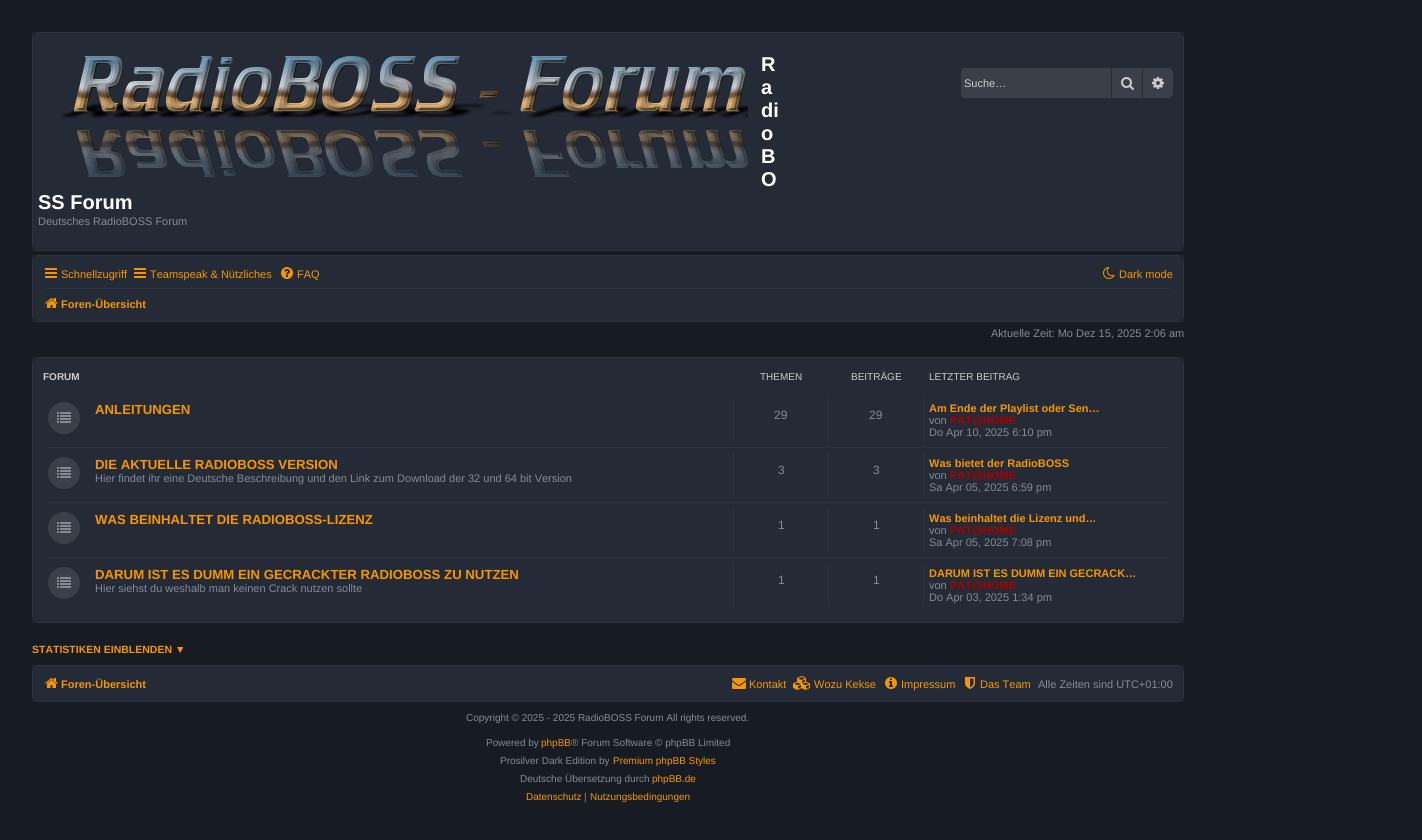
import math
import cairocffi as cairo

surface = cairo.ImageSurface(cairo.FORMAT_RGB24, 1422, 840)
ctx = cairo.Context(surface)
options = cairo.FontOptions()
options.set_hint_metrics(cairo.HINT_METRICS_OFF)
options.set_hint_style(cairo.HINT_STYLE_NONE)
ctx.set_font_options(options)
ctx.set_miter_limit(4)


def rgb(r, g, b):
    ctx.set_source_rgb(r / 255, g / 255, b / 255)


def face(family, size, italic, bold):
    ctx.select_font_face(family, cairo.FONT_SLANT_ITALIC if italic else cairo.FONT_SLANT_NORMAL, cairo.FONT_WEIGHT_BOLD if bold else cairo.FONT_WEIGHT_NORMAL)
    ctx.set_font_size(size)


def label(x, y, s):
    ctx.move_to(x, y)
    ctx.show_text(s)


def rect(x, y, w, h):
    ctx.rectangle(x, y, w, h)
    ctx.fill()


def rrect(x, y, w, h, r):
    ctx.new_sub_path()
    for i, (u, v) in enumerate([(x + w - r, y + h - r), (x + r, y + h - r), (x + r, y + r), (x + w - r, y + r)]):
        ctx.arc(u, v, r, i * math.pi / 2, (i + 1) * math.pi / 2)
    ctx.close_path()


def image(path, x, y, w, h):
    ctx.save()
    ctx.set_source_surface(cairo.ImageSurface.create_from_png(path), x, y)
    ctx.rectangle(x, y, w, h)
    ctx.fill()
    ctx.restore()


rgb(23, 27, 36)
ctx.paint()
rgb(36, 42, 54)
rrect(32, 32, 1152, 219, 7)
ctx.fill()
ctx.rectangle(32.5, 32.5, 1151, 218)
ctx.set_source_rgba(1, 1, 1, 0.04)
ctx.set_line_width(1)
ctx.stroke()
image('image0.png', 60, 56, 688, 121)
face('Liberation Sans', 20, 0, 1)
rgb(255, 255, 255)
label(761, 71, 'R')
label(761, 94, 'a')
label(761, 117, 'di')
label(761, 140, 'o')
label(761, 163, 'B')
label(761, 186, 'O')
label(38, 209, 'SS Forum')
face('Liberation Sans', 11, 0, 0)
rgb(131, 139, 152)
label(38, 225, 'Deutsches RadioBOSS Forum')
rgb(58, 63, 74)
ctx.new_path()
ctx.move_to(965, 68)
ctx.line_to(1111, 68)
ctx.line_to(1111, 98)
ctx.line_to(965, 98)
ctx.curve_to(963, 98, 961, 96, 961, 94)
ctx.line_to(961, 72)
ctx.curve_to(961, 70, 963, 68, 965, 68)
ctx.close_path()
ctx.fill()
rgb(204, 204, 204)
label(964, 87, 'Suche…')
rgb(58, 63, 74)
rect(1112, 68, 30, 30)
image('image1.png', 1121, 77, 13, 13)
ctx.new_path()
ctx.move_to(1143, 68)
ctx.line_to(1169, 68)
ctx.curve_to(1171, 68, 1173, 70, 1173, 72)
ctx.line_to(1173, 94)
ctx.curve_to(1173, 96, 1171, 98, 1169, 98)
ctx.line_to(1143, 98)
ctx.close_path()
ctx.fill()
image('image2.png', 1152, 77, 12, 12)
rgb(36, 42, 54)
rrect(32, 255, 1152, 67, 7)
ctx.fill()
ctx.rectangle(32.5, 255.5, 1151, 66)
ctx.set_source_rgba(1, 1, 1, 0.04)
ctx.stroke()
image('image3.png', 45, 268, 12, 10)
rgb(246, 150, 0)
label(61, 278, 'Schnellzugriff')
image('image3.png', 134, 268, 12, 10)
label(150, 278, 'Teamspeak & Nützliches')
image('image4.png', 281, 267, 12, 12)
label(297, 278, 'FAQ')
image('image5.png', 1103, 267, 12, 12)
label(1119, 278, 'Dark mode')
rgb(45, 51, 62)
rect(43, 288, 1130, 1)
image('image6.png', 45, 298, 13, 10)
face('Liberation Sans', 11, 0, 1)
rgb(246, 150, 0)
label(61, 308, 'Foren-Übersicht')
face('Liberation Sans', 11, 0, 0)
rgb(131, 139, 152)
label(991, 337, 'Aktuelle Zeit: Mo Dez 15, 2025 2:06 am')
rgb(36, 42, 54)
rrect(32, 357, 1152, 266, 7)
ctx.fill()
ctx.rectangle(32.5, 357.5, 1151, 265)
ctx.set_source_rgba(1, 1, 1, 0.04)
ctx.stroke()
face('Liberation Sans', 10, 0, 1)
rgb(204, 204, 204)
label(43, 380, 'FORUM')
face('Liberation Sans', 10, 0, 0)
label(760, 380, 'THEMEN')
label(851, 380, 'BEITRÄGE')
label(929, 380, 'LETZTER BEITRAG')
rgb(45, 51, 62)
rect(47, 447, 1122, 1)
rgb(58, 63, 74)
ctx.new_path()
ctx.arc(64, 418, 16, 0, 2 * math.pi)
ctx.fill()
image('image7.png', 57, 412, 14, 11)
face('Liberation Sans', 13.2, 0, 1)
rgb(246, 150, 0)
label(95, 414, 'ANLEITUNGEN')
rgb(45, 51, 62)
rect(733, 398, 1, 44)
face('Liberation Sans', 12, 0, 0)
rgb(131, 139, 152)
label(774, 419, '29')
rgb(45, 51, 62)
rect(828, 398, 1, 44)
rgb(131, 139, 152)
label(869, 419, '29')
rgb(45, 51, 62)
rect(923, 398, 1, 44)
face('Liberation Sans', 11, 0, 1)
rgb(246, 150, 0)
label(929, 412, 'Am Ende der Playlist oder Sen…')
face('Liberation Sans', 11, 0, 0)
rgb(131, 139, 152)
label(929, 424, 'von')
face('Liberation Sans', 11, 0, 1)
rgb(170, 0, 0)
label(950, 424, 'PAT@HOME')
face('Liberation Sans', 11, 0, 0)
rgb(131, 139, 152)
label(929, 436, 'Do Apr 10, 2025 6:10 pm')
rgb(45, 51, 62)
rect(47, 502, 1122, 1)
rgb(58, 63, 74)
ctx.new_path()
ctx.arc(64, 473, 16, 0, 2 * math.pi)
ctx.fill()
image('image7.png', 57, 467, 14, 11)
face('Liberation Sans', 13.2, 0, 1)
rgb(246, 150, 0)
label(95, 469, 'DIE AKTUELLE RADIOBOSS VERSION')
face('Liberation Sans', 11, 0, 0)
rgb(131, 139, 152)
label(95, 482, 'Hier findet ihr eine Deutsche Beschreibung und den Link zum Download der 32 und 64 bit Version')
rgb(45, 51, 62)
rect(733, 453, 1, 44)
face('Liberation Sans', 12, 0, 0)
rgb(131, 139, 152)
label(778, 474, '3')
rgb(45, 51, 62)
rect(828, 453, 1, 44)
rgb(131, 139, 152)
label(873, 474, '3')
rgb(45, 51, 62)
rect(923, 453, 1, 44)
face('Liberation Sans', 11, 0, 1)
rgb(246, 150, 0)
label(929, 467, 'Was bietet der RadioBOSS')
face('Liberation Sans', 11, 0, 0)
rgb(131, 139, 152)
label(929, 479, 'von')
face('Liberation Sans', 11, 0, 1)
rgb(170, 0, 0)
label(950, 479, 'PAT@HOME')
face('Liberation Sans', 11, 0, 0)
rgb(131, 139, 152)
label(929, 491, 'Sa Apr 05, 2025 6:59 pm')
rgb(45, 51, 62)
rect(47, 557, 1122, 1)
rgb(58, 63, 74)
ctx.new_path()
ctx.arc(64, 528, 16, 0, 2 * math.pi)
ctx.fill()
image('image7.png', 57, 522, 14, 11)
face('Liberation Sans', 13.2, 0, 1)
rgb(246, 150, 0)
label(95, 524, 'WAS BEINHALTET DIE RADIOBOSS-LIZENZ')
rgb(45, 51, 62)
rect(733, 508, 1, 44)
face('Liberation Sans', 12, 0, 0)
rgb(131, 139, 152)
label(778, 529, '1')
rgb(45, 51, 62)
rect(828, 508, 1, 44)
rgb(131, 139, 152)
label(873, 529, '1')
rgb(45, 51, 62)
rect(923, 508, 1, 44)
face('Liberation Sans', 11, 0, 1)
rgb(246, 150, 0)
label(929, 522, 'Was beinhaltet die Lizenz und…')
face('Liberation Sans', 11, 0, 0)
rgb(131, 139, 152)
label(929, 534, 'von')
face('Liberation Sans', 11, 0, 1)
rgb(170, 0, 0)
label(950, 534, 'PAT@HOME')
face('Liberation Sans', 11, 0, 0)
rgb(131, 139, 152)
label(929, 546, 'Sa Apr 05, 2025 7:08 pm')
rgb(58, 63, 74)
ctx.new_path()
ctx.arc(64, 583, 16, 0, 2 * math.pi)
ctx.fill()
image('image7.png', 57, 577, 14, 11)
face('Liberation Sans', 13.2, 0, 1)
rgb(246, 150, 0)
label(95, 579, 'DARUM IST ES DUMM EIN GECRACKTER RADIOBOSS ZU NUTZEN')
face('Liberation Sans', 11, 0, 0)
rgb(131, 139, 152)
label(95, 592, 'Hier siehst du weshalb man keinen Crack nutzen sollte')
rgb(45, 51, 62)
rect(733, 563, 1, 44)
face('Liberation Sans', 12, 0, 0)
rgb(131, 139, 152)
label(778, 584, '1')
rgb(45, 51, 62)
rect(828, 563, 1, 44)
rgb(131, 139, 152)
label(873, 584, '1')
rgb(45, 51, 62)
rect(923, 563, 1, 44)
face('Liberation Sans', 11, 0, 1)
rgb(246, 150, 0)
label(929, 577, 'DARUM IST ES DUMM EIN GECRACK…')
face('Liberation Sans', 11, 0, 0)
rgb(131, 139, 152)
label(929, 589, 'von')
face('Liberation Sans', 11, 0, 1)
rgb(170, 0, 0)
label(950, 589, 'PAT@HOME')
face('Liberation Sans', 11, 0, 0)
rgb(131, 139, 152)
label(929, 601, 'Do Apr 03, 2025 1:34 pm')
face('Liberation Sans', 10.5, 0, 1)
rgb(246, 150, 0)
label(32, 653, 'STATISTIKEN EINBLENDEN ▼')
rgb(36, 42, 54)
rrect(32, 665, 1152, 37, 7)
ctx.fill()
ctx.rectangle(32.5, 665.5, 1151, 36)
ctx.set_source_rgba(1, 1, 1, 0.04)
ctx.stroke()
image('image6.png', 45, 678, 13, 10)
face('Liberation Sans', 11, 0, 1)
rgb(246, 150, 0)
label(61, 688, 'Foren-Übersicht')
image('image8.png', 732, 678, 14, 11)
face('Liberation Sans', 11, 0, 0)
label(749, 688, 'Kontakt')
image('image9.png', 793, 676, 17, 14)
label(814, 688, 'Wozu Kekse')
image('image10.png', 885, 677, 12, 12)
label(901, 688, 'Impressum')
image('image11.png', 965, 677, 10, 12)
label(980, 688, 'Das Team')
rgb(131, 139, 152)
label(1038, 688, 'Alle Zeiten sind UTC+01:00')
face('Liberation Sans', 10, 0, 0)
label(466, 721, 'Copyright © 2025 - 2025 RadioBOSS Forum All rights reserved.')
label(486, 746, 'Powered by')
rgb(246, 150, 0)
label(541, 746, 'phpBB')
rgb(131, 139, 152)
label(571, 746, '® Forum Software © phpBB Limited')
label(500, 764, 'Prosilver Dark Edition by')
rgb(246, 150, 0)
label(613, 764, 'Premium phpBB Styles')
rgb(131, 139, 152)
label(520, 782, 'Deutsche Übersetzung durch')
rgb(246, 150, 0)
label(652, 782, 'phpBB.de')
label(526, 800, 'Datenschutz')
rgb(131, 139, 152)
label(584, 800, '|')
rgb(246, 150, 0)
label(590, 800, 'Nutzungsbedingungen')
surface.write_to_png('render.png')
